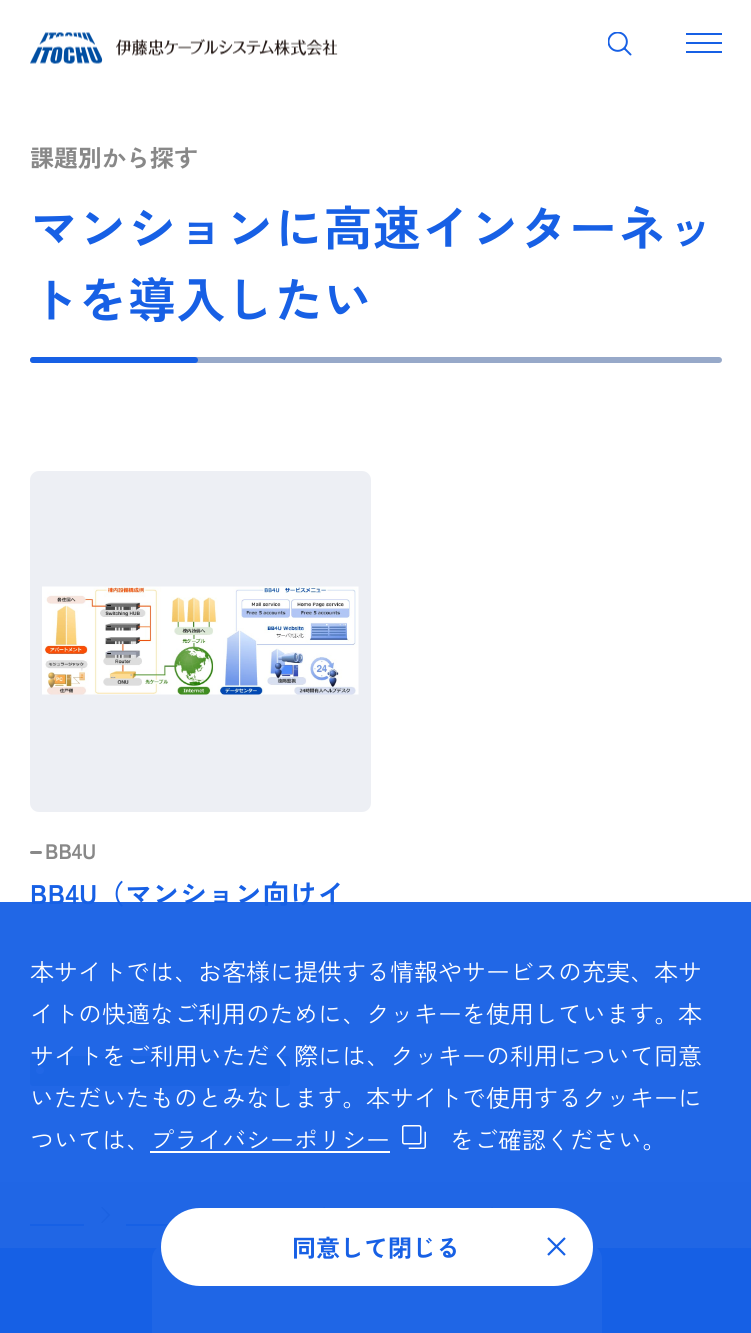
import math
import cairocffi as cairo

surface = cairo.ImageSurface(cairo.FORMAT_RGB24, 751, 1333)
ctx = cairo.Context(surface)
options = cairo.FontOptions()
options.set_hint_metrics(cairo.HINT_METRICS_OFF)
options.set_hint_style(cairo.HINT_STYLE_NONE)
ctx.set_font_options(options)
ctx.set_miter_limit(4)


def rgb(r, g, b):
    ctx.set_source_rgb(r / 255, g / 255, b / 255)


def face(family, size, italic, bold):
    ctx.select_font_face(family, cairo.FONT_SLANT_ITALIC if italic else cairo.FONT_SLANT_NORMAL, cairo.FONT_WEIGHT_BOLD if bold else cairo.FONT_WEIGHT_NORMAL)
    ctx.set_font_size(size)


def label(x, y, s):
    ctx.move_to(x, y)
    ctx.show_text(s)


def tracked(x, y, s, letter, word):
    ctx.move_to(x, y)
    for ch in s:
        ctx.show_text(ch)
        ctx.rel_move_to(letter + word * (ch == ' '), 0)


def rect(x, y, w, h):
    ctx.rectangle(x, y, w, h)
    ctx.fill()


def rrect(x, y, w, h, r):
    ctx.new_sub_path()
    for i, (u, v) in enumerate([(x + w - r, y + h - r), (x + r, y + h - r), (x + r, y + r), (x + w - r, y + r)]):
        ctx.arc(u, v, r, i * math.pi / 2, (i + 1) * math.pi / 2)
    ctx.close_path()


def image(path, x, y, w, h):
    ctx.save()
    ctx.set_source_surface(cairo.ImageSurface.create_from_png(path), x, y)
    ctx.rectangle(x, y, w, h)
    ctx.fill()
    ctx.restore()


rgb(255, 255, 255)
ctx.paint()
image('image0.png', 30, 32, 308, 32)
image('image1.png', 608, 32, 24, 24)
rgb(23, 96, 229)
rect(686, 42, 36, 2)
rect(686, 33, 36, 2)
rect(686, 51, 36, 2)
face('Zen Kaku Gothic New', 24, 0, 1)
rgb(136, 136, 136)
label(30, 167, '課題別から探す')
face('Zen Kaku Gothic New', 48, 0, 1)
rgb(23, 96, 229)
tracked(30, 246, 'マンションに高速インターネッ', 1, 0)
tracked(30, 318, 'トを導入したい', 1, 0)
rgb(151, 169, 201)
rrect(30, 357, 692, 6, 3)
ctx.fill()
rgb(23, 96, 229)
rrect(30, 357, 168, 6, 3)
ctx.fill()
rgb(237, 239, 244)
rrect(30, 471, 341, 341, 9)
ctx.fill()
image('image2.png', 42, 586, 317, 109)
rgb(136, 136, 136)
rrect(30, 851, 12, 3, 1.5)
ctx.fill()
face('Zen Kaku Gothic New', 21, 0, 1)
label(45, 859, 'BB4U')
face('Zen Kaku Gothic New', 27, 0, 1)
rgb(23, 96, 229)
tracked(30, 904, 'BB4U（マンション向けイ', 0.5, 0)
rgb(147, 185, 198)
rrect(30, 1056, 260, 30, 3)
ctx.fill()
rgb(255, 255, 255)
rrect(36, 1067, 8, 7, 3.5)
ctx.fill()
rgb(237, 239, 244)
rect(0, 1182, 751, 66)
rgb(23, 96, 229)
rect(0, 1248, 751, 85)
rgb(210, 225, 251)
rrect(152, 1244, 450, 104, 15)
ctx.fill()
rgb(136, 136, 136)
ctx.new_path()
ctx.move_to(108, 1215)
ctx.line_to(101, 1222.5)
ctx.line_to(102, 1223.5)
ctx.line_to(110.5, 1215)
ctx.line_to(102, 1206.5)
ctx.line_to(101, 1207.5)
ctx.close_path()
ctx.fill()
rgb(23, 96, 229)
rect(30, 1224, 54, 2)
rgb(136, 136, 136)
ctx.new_path()
ctx.move_to(330, 1215)
ctx.line_to(323, 1222.5)
ctx.line_to(324, 1223.5)
ctx.line_to(332.5, 1215)
ctx.line_to(324, 1206.5)
ctx.line_to(323, 1207.5)
ctx.close_path()
ctx.fill()
rgb(23, 96, 229)
rect(126, 1224, 43, 2)
rgb(136, 136, 136)
ctx.new_path()
ctx.move_to(498, 1215)
ctx.line_to(491, 1222.5)
ctx.line_to(492, 1223.5)
ctx.line_to(500.5, 1215)
ctx.line_to(492, 1206.5)
ctx.line_to(491, 1207.5)
ctx.close_path()
ctx.fill()
ctx.set_source_rgba(0.09, 0.376, 0.898, 0.95)
rect(0, 902, 751, 431)
face('Zen Kaku Gothic New', 24, 0, 0)
rgb(255, 255, 255)
label(30, 981, '本サイトでは、お客様に提供する情報やサービスの充実、本サ')
label(30, 1023, 'イトの快適なご利用のために、クッキーを使用しています。本')
label(30, 1065, 'サイトをご利用いただく際には、クッキーの利用について同意')
label(30, 1107, 'いただいたものとみなします。本サイトで使用するクッキーに')
label(30, 1149, 'ついては、プライバシーポリシー')
image('image3.png', 402, 1125, 24, 24)
label(450, 1149, 'をご確認ください。')
rect(150, 1151, 240, 2)
rrect(161, 1208, 432, 78, 39)
ctx.fill()
face('Zen Kaku Gothic New', 24, 0, 1)
rgb(23, 96, 229)
label(292, 1257, '同意して閉じる')
image('image4.png', 547, 1237, 19, 19)
surface.write_to_png('render.png')
